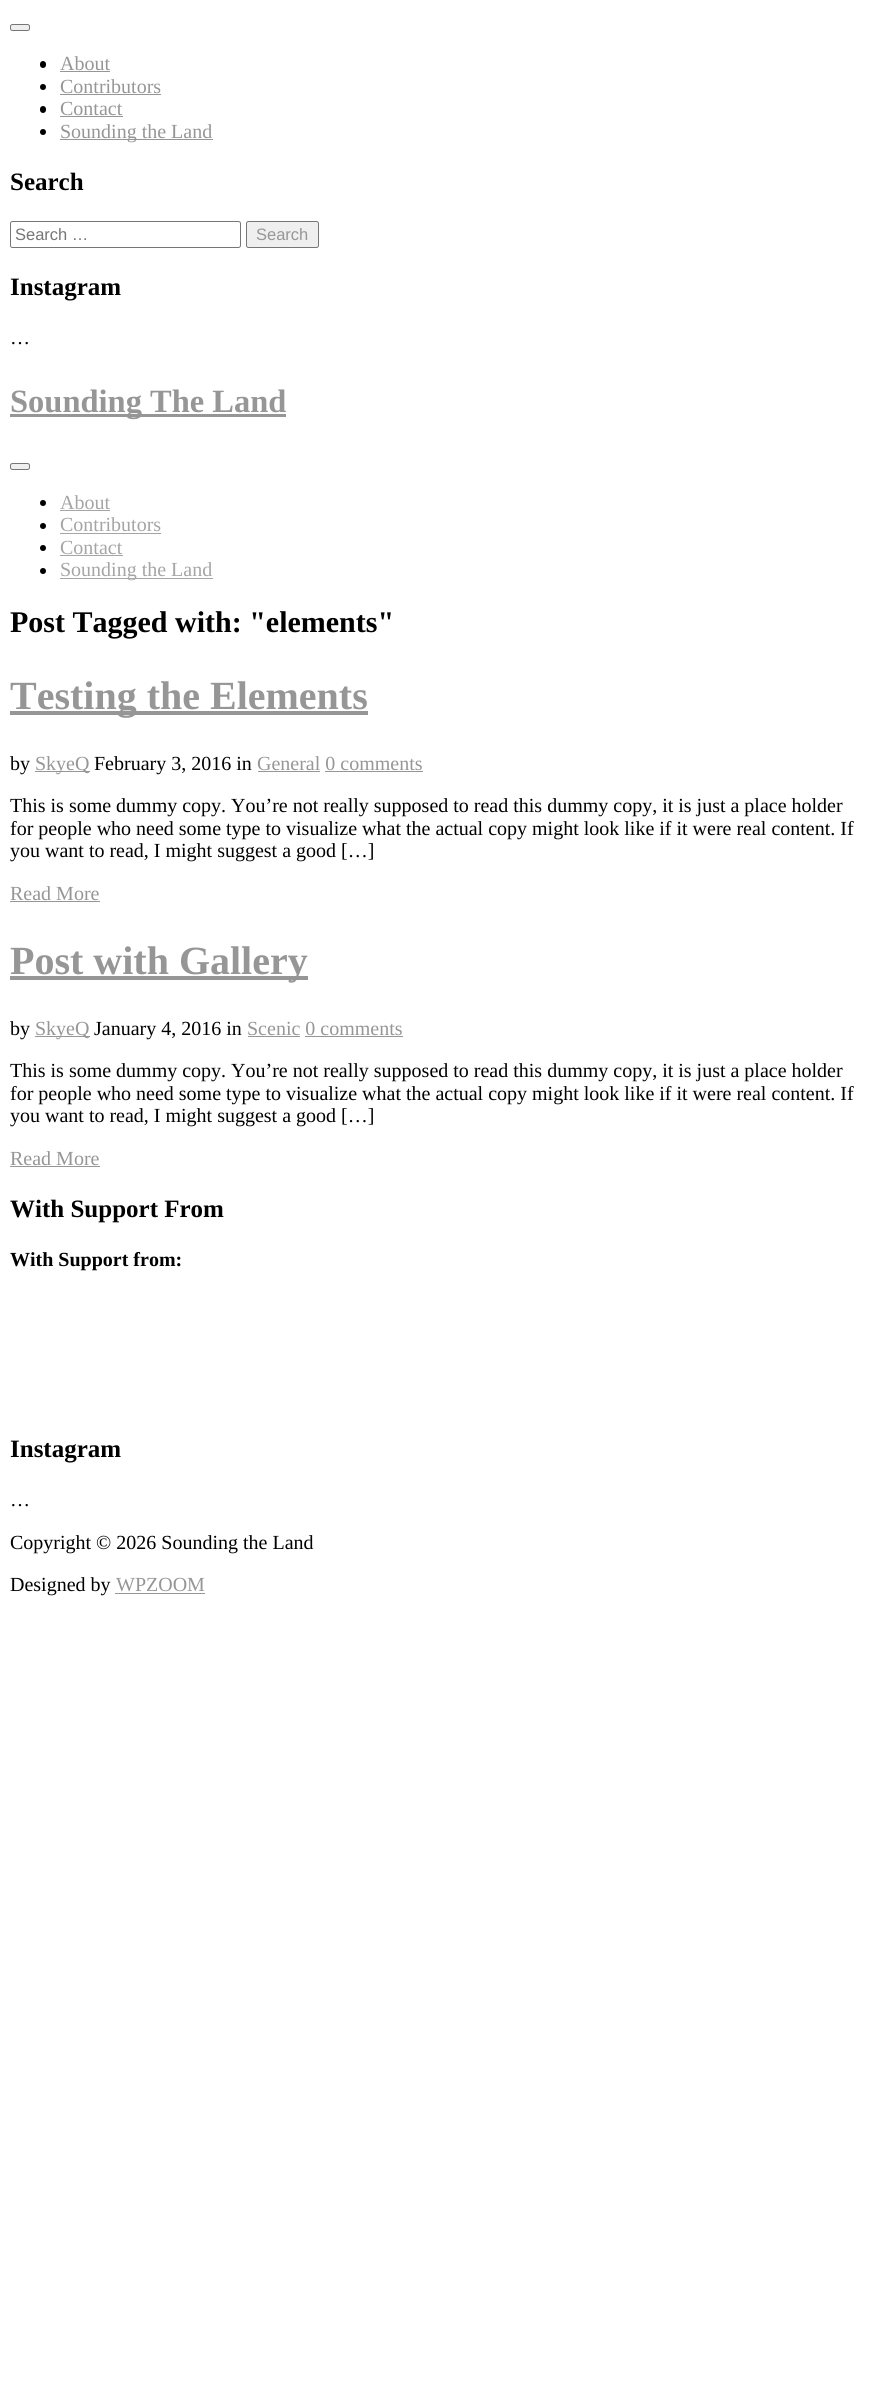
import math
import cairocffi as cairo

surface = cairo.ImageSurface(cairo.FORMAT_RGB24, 874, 2382)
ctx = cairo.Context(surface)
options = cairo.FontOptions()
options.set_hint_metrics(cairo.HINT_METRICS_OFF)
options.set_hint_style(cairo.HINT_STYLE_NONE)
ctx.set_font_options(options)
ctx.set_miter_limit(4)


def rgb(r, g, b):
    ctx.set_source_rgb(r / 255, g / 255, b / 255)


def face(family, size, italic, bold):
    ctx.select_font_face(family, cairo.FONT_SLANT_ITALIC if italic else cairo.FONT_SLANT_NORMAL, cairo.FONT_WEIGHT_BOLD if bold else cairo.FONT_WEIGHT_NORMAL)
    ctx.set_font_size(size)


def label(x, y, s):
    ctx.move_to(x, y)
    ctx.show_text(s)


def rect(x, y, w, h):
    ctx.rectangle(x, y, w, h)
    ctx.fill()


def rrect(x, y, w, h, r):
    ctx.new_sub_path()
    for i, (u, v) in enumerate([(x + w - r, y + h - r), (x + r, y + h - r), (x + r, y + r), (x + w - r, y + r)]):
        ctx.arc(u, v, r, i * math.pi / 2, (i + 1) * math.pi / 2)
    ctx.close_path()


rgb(255, 255, 255)
ctx.paint()
rgb(239, 239, 239)
rrect(10.5, 24.5, 19, 6, 2)
ctx.fill_preserve()
rgb(118, 118, 118)
ctx.set_line_width(1)
ctx.stroke()
rgb(0, 0, 0)
rrect(40, 61, 6, 7, 3)
ctx.fill()
face('Liberation Serif', 20, 0, 0)
rgb(150, 150, 150)
label(60, 70, 'About')
rect(60, 71, 50, 1)
rgb(0, 0, 0)
ctx.new_path()
ctx.arc(43, 87, 3, 0, 2 * math.pi)
ctx.fill()
rgb(150, 150, 150)
label(60, 93, 'Contributors')
rect(60, 94, 101, 1)
rgb(0, 0, 0)
rrect(40, 106, 6, 7, 3)
ctx.fill()
rgb(150, 150, 150)
label(60, 115, 'Contact')
rect(60, 116, 63, 1)
rgb(0, 0, 0)
ctx.new_path()
ctx.arc(43, 132, 3, 0, 2 * math.pi)
ctx.fill()
rgb(150, 150, 150)
rect(60, 139, 153, 1)
label(60, 138, 'Sounding the Land')
face('Liberation Serif', 25, 0, 1)
rgb(0, 0, 0)
label(10, 190, 'Search')
rrect(10.5, 221.5, 230, 26, 2)
rgb(118, 118, 118)
ctx.stroke()
face('Liberation Sans', 16.5, 0, 0)
rgb(117, 117, 117)
label(15, 240, 'Search …')
rgb(239, 239, 239)
rrect(246.5, 221.5, 72, 26, 2)
ctx.fill_preserve()
rgb(118, 118, 118)
ctx.stroke()
rgb(150, 150, 150)
label(256, 240, 'Search')
face('Liberation Serif', 25, 0, 1)
rgb(0, 0, 0)
label(10, 295, 'Instagram')
face('Liberation Serif', 20, 0, 0)
label(10, 344, '…')
rgb(150, 150, 150)
rect(10, 414, 276, 3)
face('Liberation Serif', 32.5, 0, 1)
label(10, 412, 'Sounding The Land')
rgb(239, 239, 239)
rrect(10.5, 463.5, 19, 6, 2)
ctx.fill_preserve()
rgb(118, 118, 118)
ctx.stroke()
rgb(0, 0, 0)
ctx.arc(43, 503, 3, 0, 2 * math.pi)
ctx.fill()
face('Liberation Serif', 20, 0, 0)
rgb(165, 165, 165)
label(60, 509, 'About')
rect(60, 510, 50, 1)
rgb(0, 0, 0)
ctx.new_path()
ctx.arc(43, 526, 3, 0, 2 * math.pi)
ctx.fill()
rgb(165, 165, 165)
label(60, 531, 'Contributors')
rect(60, 533, 101, 1)
rgb(0, 0, 0)
ctx.new_path()
ctx.arc(43, 548, 3, 0, 2 * math.pi)
ctx.fill()
rgb(165, 165, 165)
label(60, 554, 'Contact')
rect(60, 555, 63, 1)
rgb(0, 0, 0)
ctx.new_path()
ctx.arc(43, 571, 3, 0, 2 * math.pi)
ctx.fill()
rgb(165, 165, 165)
rect(60, 578, 153, 1)
label(60, 576, 'Sounding the Land')
face('Liberation Serif', 30, 0, 1)
rgb(0, 0, 0)
label(10, 632, 'Post Tagged with: "elements"')
rgb(150, 150, 150)
rect(10, 711, 358, 4)
face('Liberation Serif', 40, 0, 1)
label(10, 709, 'Testing the Elements')
face('Liberation Serif', 20, 0, 0)
rgb(0, 0, 0)
label(10, 770, 'by')
rgb(150, 150, 150)
rect(35, 771, 55, 1)
label(35, 770, 'SkyeQ')
rgb(0, 0, 0)
label(94, 770, 'February 3, 2016 in')
rgb(150, 150, 150)
label(257, 770, 'General 0 comments')
rect(258, 771, 62, 1)
rect(325, 771, 98, 1)
rgb(0, 0, 0)
label(10, 812, 'This is some dummy copy. You’re not really supposed to read this dummy copy, it is just a place holder')
label(10, 835, 'for people who need some type to visualize what the actual copy might look like if it were real content. If')
label(10, 857, 'you want to read, I might suggest a good […]')
rgb(150, 150, 150)
label(10, 900, 'Read More')
rect(10, 901, 90, 1)
rect(10, 976, 298, 4)
face('Liberation Serif', 40, 0, 1)
label(10, 974, 'Post with Gallery')
face('Liberation Serif', 20, 0, 0)
rgb(0, 0, 0)
label(10, 1035, 'by')
rgb(150, 150, 150)
rect(35, 1036, 55, 1)
label(35, 1035, 'SkyeQ')
rgb(0, 0, 0)
label(94, 1035, 'January 4, 2016 in')
rgb(150, 150, 150)
label(247, 1035, 'Scenic 0 comments')
rect(248, 1036, 52, 1)
rect(305, 1036, 98, 1)
rgb(0, 0, 0)
label(10, 1077, 'This is some dummy copy. You’re not really supposed to read this dummy copy, it is just a place holder')
label(10, 1100, 'for people who need some type to visualize what the actual copy might look like if it were real content. If')
label(10, 1122, 'you want to read, I might suggest a good […]')
rgb(150, 150, 150)
label(10, 1165, 'Read More')
rect(10, 1166, 90, 1)
face('Liberation Serif', 25, 0, 1)
rgb(0, 0, 0)
label(10, 1217, 'With Support From')
face('Liberation Serif', 20, 0, 1)
label(10, 1266, 'With Support from:')
face('Liberation Serif', 25, 0, 1)
label(10, 1457, 'Instagram')
face('Liberation Serif', 20, 0, 0)
label(10, 1506, '…')
label(10, 1549, 'Copyright © 2026 Sounding the Land')
label(10, 1591, 'Designed by')
rgb(150, 150, 150)
label(116, 1591, 'WPZOOM')
rect(115, 1593, 90, 1)
surface.write_to_png('render.png')
